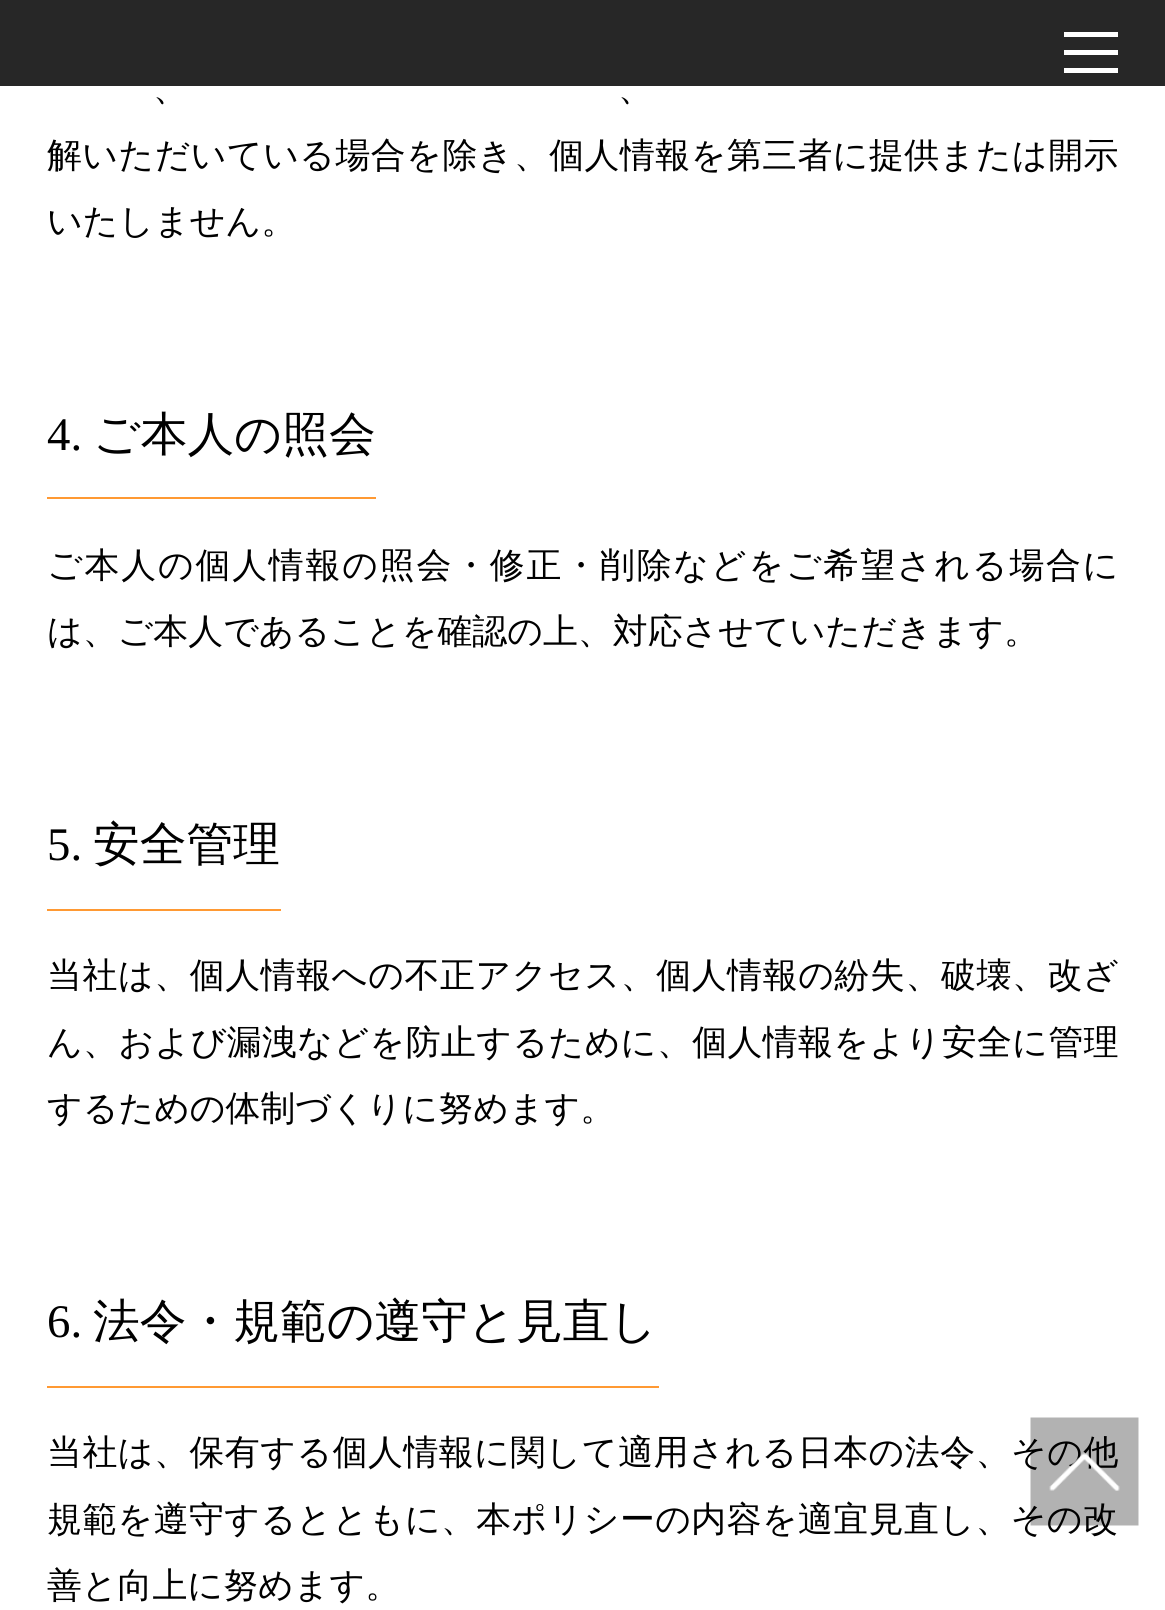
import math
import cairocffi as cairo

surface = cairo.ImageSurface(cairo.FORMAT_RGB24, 1165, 1610)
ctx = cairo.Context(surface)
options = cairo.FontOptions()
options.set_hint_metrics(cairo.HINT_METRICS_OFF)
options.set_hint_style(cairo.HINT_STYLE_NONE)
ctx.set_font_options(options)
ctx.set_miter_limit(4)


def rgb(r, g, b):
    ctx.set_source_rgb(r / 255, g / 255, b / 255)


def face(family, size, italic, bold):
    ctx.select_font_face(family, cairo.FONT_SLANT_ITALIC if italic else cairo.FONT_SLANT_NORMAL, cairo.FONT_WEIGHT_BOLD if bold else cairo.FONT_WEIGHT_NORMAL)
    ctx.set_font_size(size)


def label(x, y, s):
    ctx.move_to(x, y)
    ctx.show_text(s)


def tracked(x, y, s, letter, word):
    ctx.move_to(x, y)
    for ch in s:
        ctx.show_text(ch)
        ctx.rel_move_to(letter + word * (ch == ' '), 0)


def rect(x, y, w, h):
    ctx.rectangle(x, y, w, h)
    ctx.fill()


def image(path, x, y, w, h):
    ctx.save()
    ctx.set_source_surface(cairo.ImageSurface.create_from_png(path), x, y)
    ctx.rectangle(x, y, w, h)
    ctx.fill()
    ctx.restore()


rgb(255, 255, 255)
ctx.paint()
rgb(39, 39, 39)
rect(0, 0, 1165, 86)
rgb(255, 255, 255)
rect(1064, 32, 54, 5)
rect(1064, 50, 54, 5)
rect(1064, 68, 54, 5)
face('WenQuanYi Zen Hei Medium', 34.9, 0, 0)
rgb(0, 0, 0)
tracked(153, 100, '、', 0.4, 0)
tracked(618, 100, '、', 0.4, 0)
tracked(47, 167, '解いただいている場合を除き、個人情報を第三者に提供または開示', 0.45, 0)
label(47, 233, 'いたしません。')
rgb(255, 153, 51)
rect(47, 497, 329, 2)
face('Liberation Serif', 46.75, 0, 0)
rgb(0, 0, 0)
label(47, 450, '4.')
face('WenQuanYi Zen Hei Medium', 46.75, 0, 0)
label(93, 450, 'ご本人の照会')
face('WenQuanYi Zen Hei Medium', 34.9, 0, 0)
tracked(47, 577, 'ご本人の個人情報の照会・修正・削除などをご希望される場合に', 1.8, 0)
label(47, 643, 'は、ご本人であることを確認の上、対応させていただきます。')
rgb(255, 153, 51)
rect(47, 909, 234, 2)
face('Liberation Serif', 46.75, 0, 0)
rgb(0, 0, 0)
label(47, 860, '5.')
face('WenQuanYi Zen Hei Medium', 46.75, 0, 0)
label(93, 860, '安全管理')
face('WenQuanYi Zen Hei Medium', 34.9, 0, 0)
tracked(47, 987, '当社は、個人情報への不正アクセス、個人情報の紛失、破壊、改ざ', 0.6, 0)
tracked(47, 1054, 'ん、および漏洩などを防止するために、個人情報をより安全に管理', 0.4, 0)
label(47, 1120, 'するための体制づくりに努めます。')
rgb(255, 153, 51)
rect(47, 1386, 612, 2)
face('Liberation Serif', 46.75, 0, 0)
rgb(0, 0, 0)
label(47, 1337, '6.')
face('WenQuanYi Zen Hei Medium', 46.75, 0, 0)
label(93, 1337, '法令・規範の遵守と見直し')
face('WenQuanYi Zen Hei Medium', 34.9, 0, 0)
tracked(47, 1464, '当社は、保有する個人情報に関して適用される日本の法令、その他', 0.5, 0)
tracked(47, 1531, '規範を遵守するとともに、本ポリシーの内容を適宜見直し、その改', 0.4, 0)
label(47, 1597, '善と向上に努めます。')
image('image0.png', 1030, 1417, 109, 109)
surface.write_to_png('render.png')
